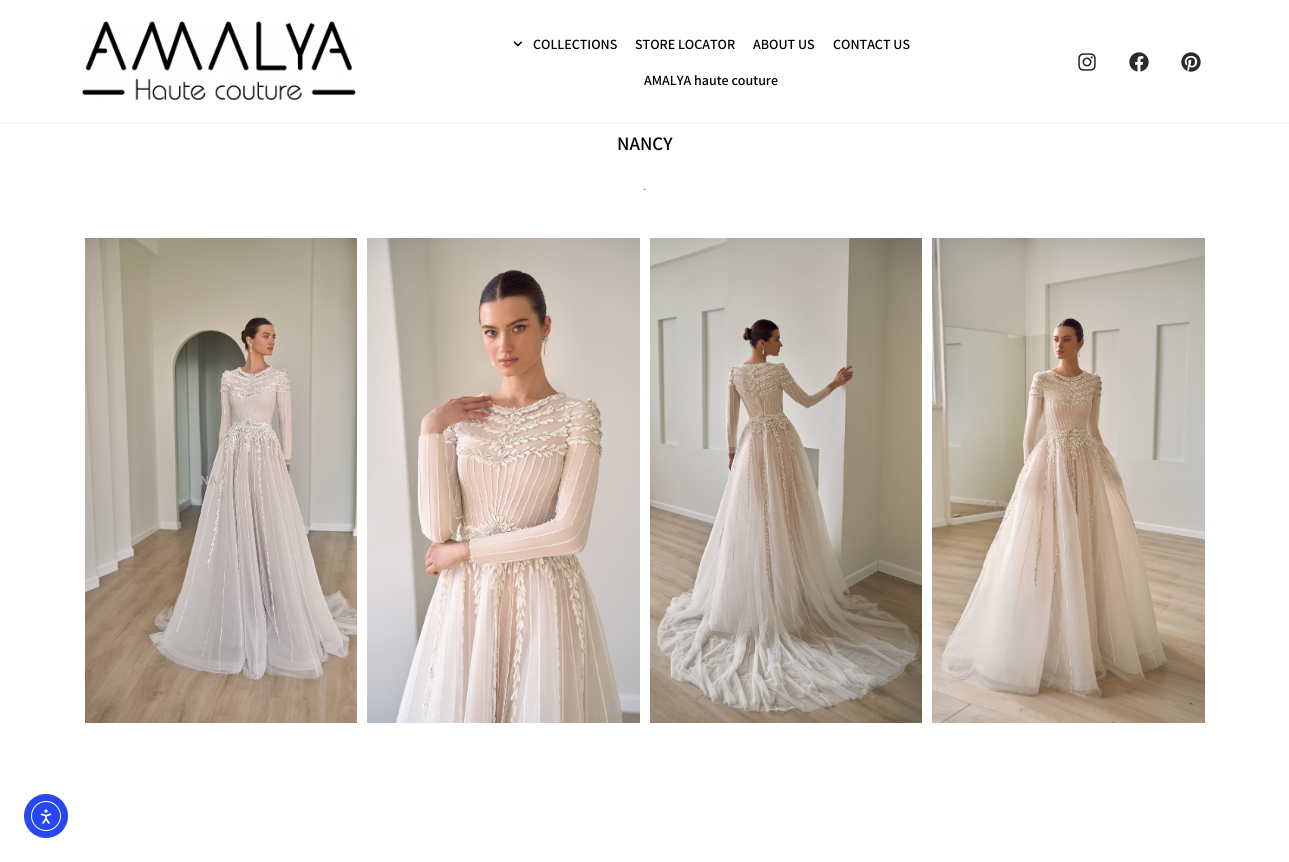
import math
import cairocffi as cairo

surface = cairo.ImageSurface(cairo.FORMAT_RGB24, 1289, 862)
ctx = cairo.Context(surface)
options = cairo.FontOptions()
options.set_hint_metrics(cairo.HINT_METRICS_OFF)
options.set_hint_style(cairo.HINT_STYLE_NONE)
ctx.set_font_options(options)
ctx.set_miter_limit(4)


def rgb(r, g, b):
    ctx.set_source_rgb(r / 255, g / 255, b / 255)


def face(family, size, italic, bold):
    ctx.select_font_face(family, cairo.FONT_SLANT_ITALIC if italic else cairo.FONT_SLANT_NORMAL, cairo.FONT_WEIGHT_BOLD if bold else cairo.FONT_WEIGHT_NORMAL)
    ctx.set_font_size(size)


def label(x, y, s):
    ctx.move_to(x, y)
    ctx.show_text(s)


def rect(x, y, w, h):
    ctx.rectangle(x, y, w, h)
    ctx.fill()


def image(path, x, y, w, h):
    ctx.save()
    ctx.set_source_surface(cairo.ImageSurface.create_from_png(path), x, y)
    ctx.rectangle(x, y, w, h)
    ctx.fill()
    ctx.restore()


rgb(255, 255, 255)
ctx.paint()
rgb(241, 241, 241)
rect(0, 123, 1289, 1)
image('image0.png', 82, 21, 274, 79)
image('image1.png', 513, 41, 9, 6)
face('Assistant SemiBold', 14, 0, 0)
rgb(0, 0, 0)
label(533, 49, 'COLLECTIONS')
label(635, 49, 'STORE LOCATOR')
label(753, 49, 'ABOUT US')
label(833, 49, 'CONTACT US')
label(644, 85, 'AMALYA haute couture')
image('image2.png', 1078, 53, 18, 18)
image('image3.png', 1129, 52, 20, 20)
image('image4.png', 1181, 52, 20, 20)
face('Assistant SemiBold', 19, 0, 0)
label(617, 150, 'NANCY')
face('Assistant', 14, 0, 0)
rgb(122, 122, 122)
label(643, 190, '.')
image('image5.png', 85, 238, 272, 485)
face('Assistant SemiBold', 14, 0, 0)
rgb(177, 169, 166)
label(200, 485, 'NA')
image('image6.png', 367, 238, 273, 485)
image('image7.png', 650, 238, 272, 485)
image('image8.png', 932, 238, 273, 485)
rgb(40, 71, 243)
ctx.arc(46, 816, 22, 0, 2 * math.pi)
ctx.fill()
ctx.arc(46, 816, 14.5, 0, 2 * math.pi)
rgb(255, 255, 255)
ctx.set_line_width(1)
ctx.stroke()
image('image9.png', 40, 809, 12, 15)
surface.write_to_png('render.png')
